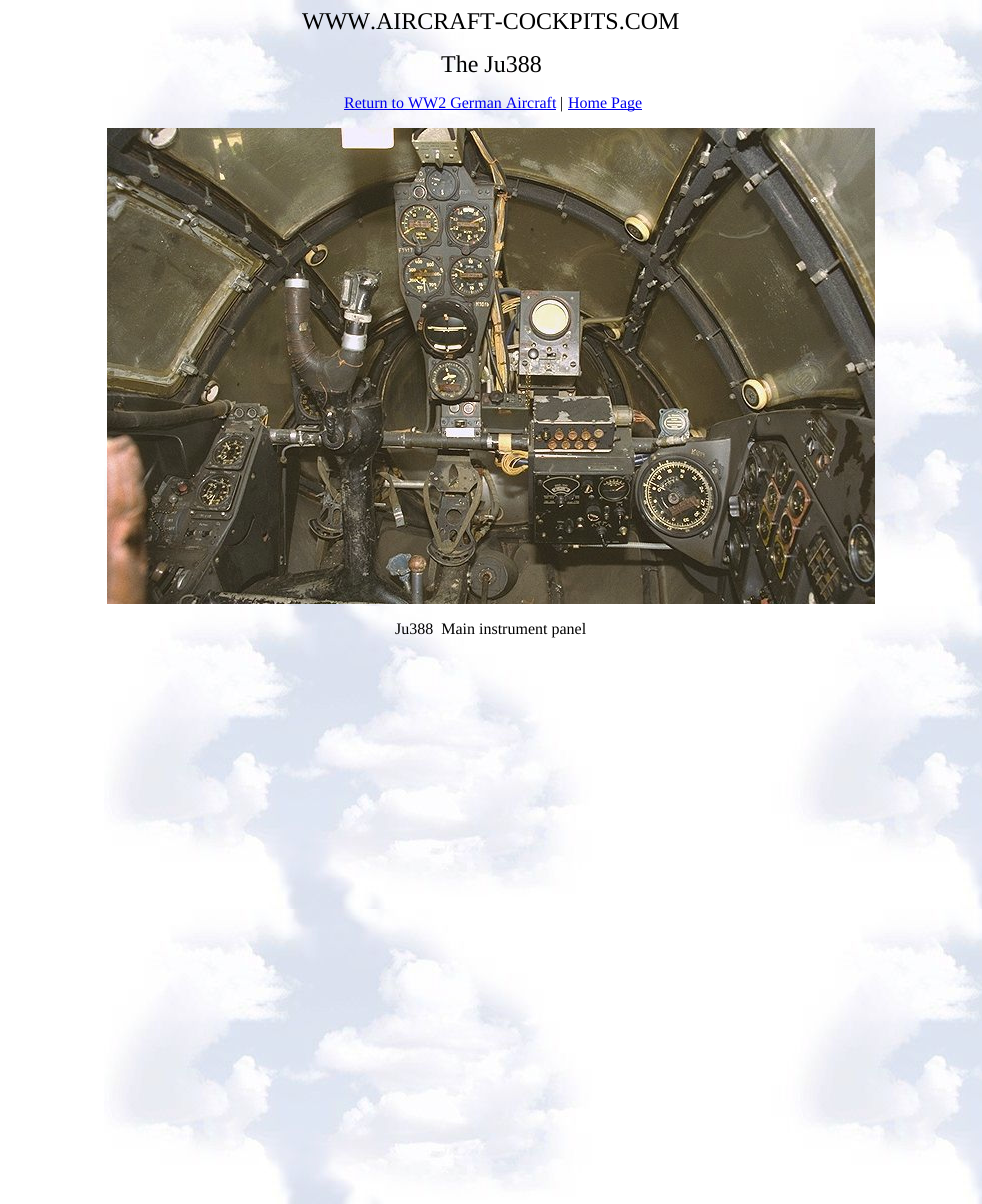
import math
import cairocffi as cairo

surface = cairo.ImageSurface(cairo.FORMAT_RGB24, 982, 1204)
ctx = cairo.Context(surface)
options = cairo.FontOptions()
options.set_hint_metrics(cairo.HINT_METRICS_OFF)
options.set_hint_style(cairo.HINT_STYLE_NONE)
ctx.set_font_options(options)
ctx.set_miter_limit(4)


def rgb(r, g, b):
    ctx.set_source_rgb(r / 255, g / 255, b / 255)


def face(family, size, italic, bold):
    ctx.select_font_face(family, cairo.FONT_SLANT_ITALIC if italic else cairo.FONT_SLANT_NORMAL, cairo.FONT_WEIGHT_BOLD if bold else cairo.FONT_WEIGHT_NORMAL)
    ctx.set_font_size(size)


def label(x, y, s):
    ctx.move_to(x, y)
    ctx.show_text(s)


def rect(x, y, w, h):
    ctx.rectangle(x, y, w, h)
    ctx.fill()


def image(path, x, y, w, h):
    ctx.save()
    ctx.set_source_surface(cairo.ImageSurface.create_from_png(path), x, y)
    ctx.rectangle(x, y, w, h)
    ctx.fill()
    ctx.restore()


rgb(255, 255, 255)
ctx.paint()
image('image0.png', 104, 0, 878, 1204)
face('Liberation Serif', 24, 0, 0)
rgb(0, 0, 0)
label(302, 29, 'WWW.AIRCRAFT-COCKPITS.COM')
label(441, 72, 'The Ju388')
face('Liberation Serif', 16, 0, 0)
rgb(0, 0, 238)
label(344, 108, 'Return to WW2 German Aircraft')
rect(344, 109, 212, 1)
rgb(0, 0, 0)
label(560, 108, '|')
rgb(0, 0, 238)
rect(568, 109, 74, 1)
label(568, 108, 'Home Page')
image('image1.png', 107, 128, 768, 476)
rgb(0, 0, 0)
label(395, 634, 'Ju388  Main instrument panel')
surface.write_to_png('render.png')
